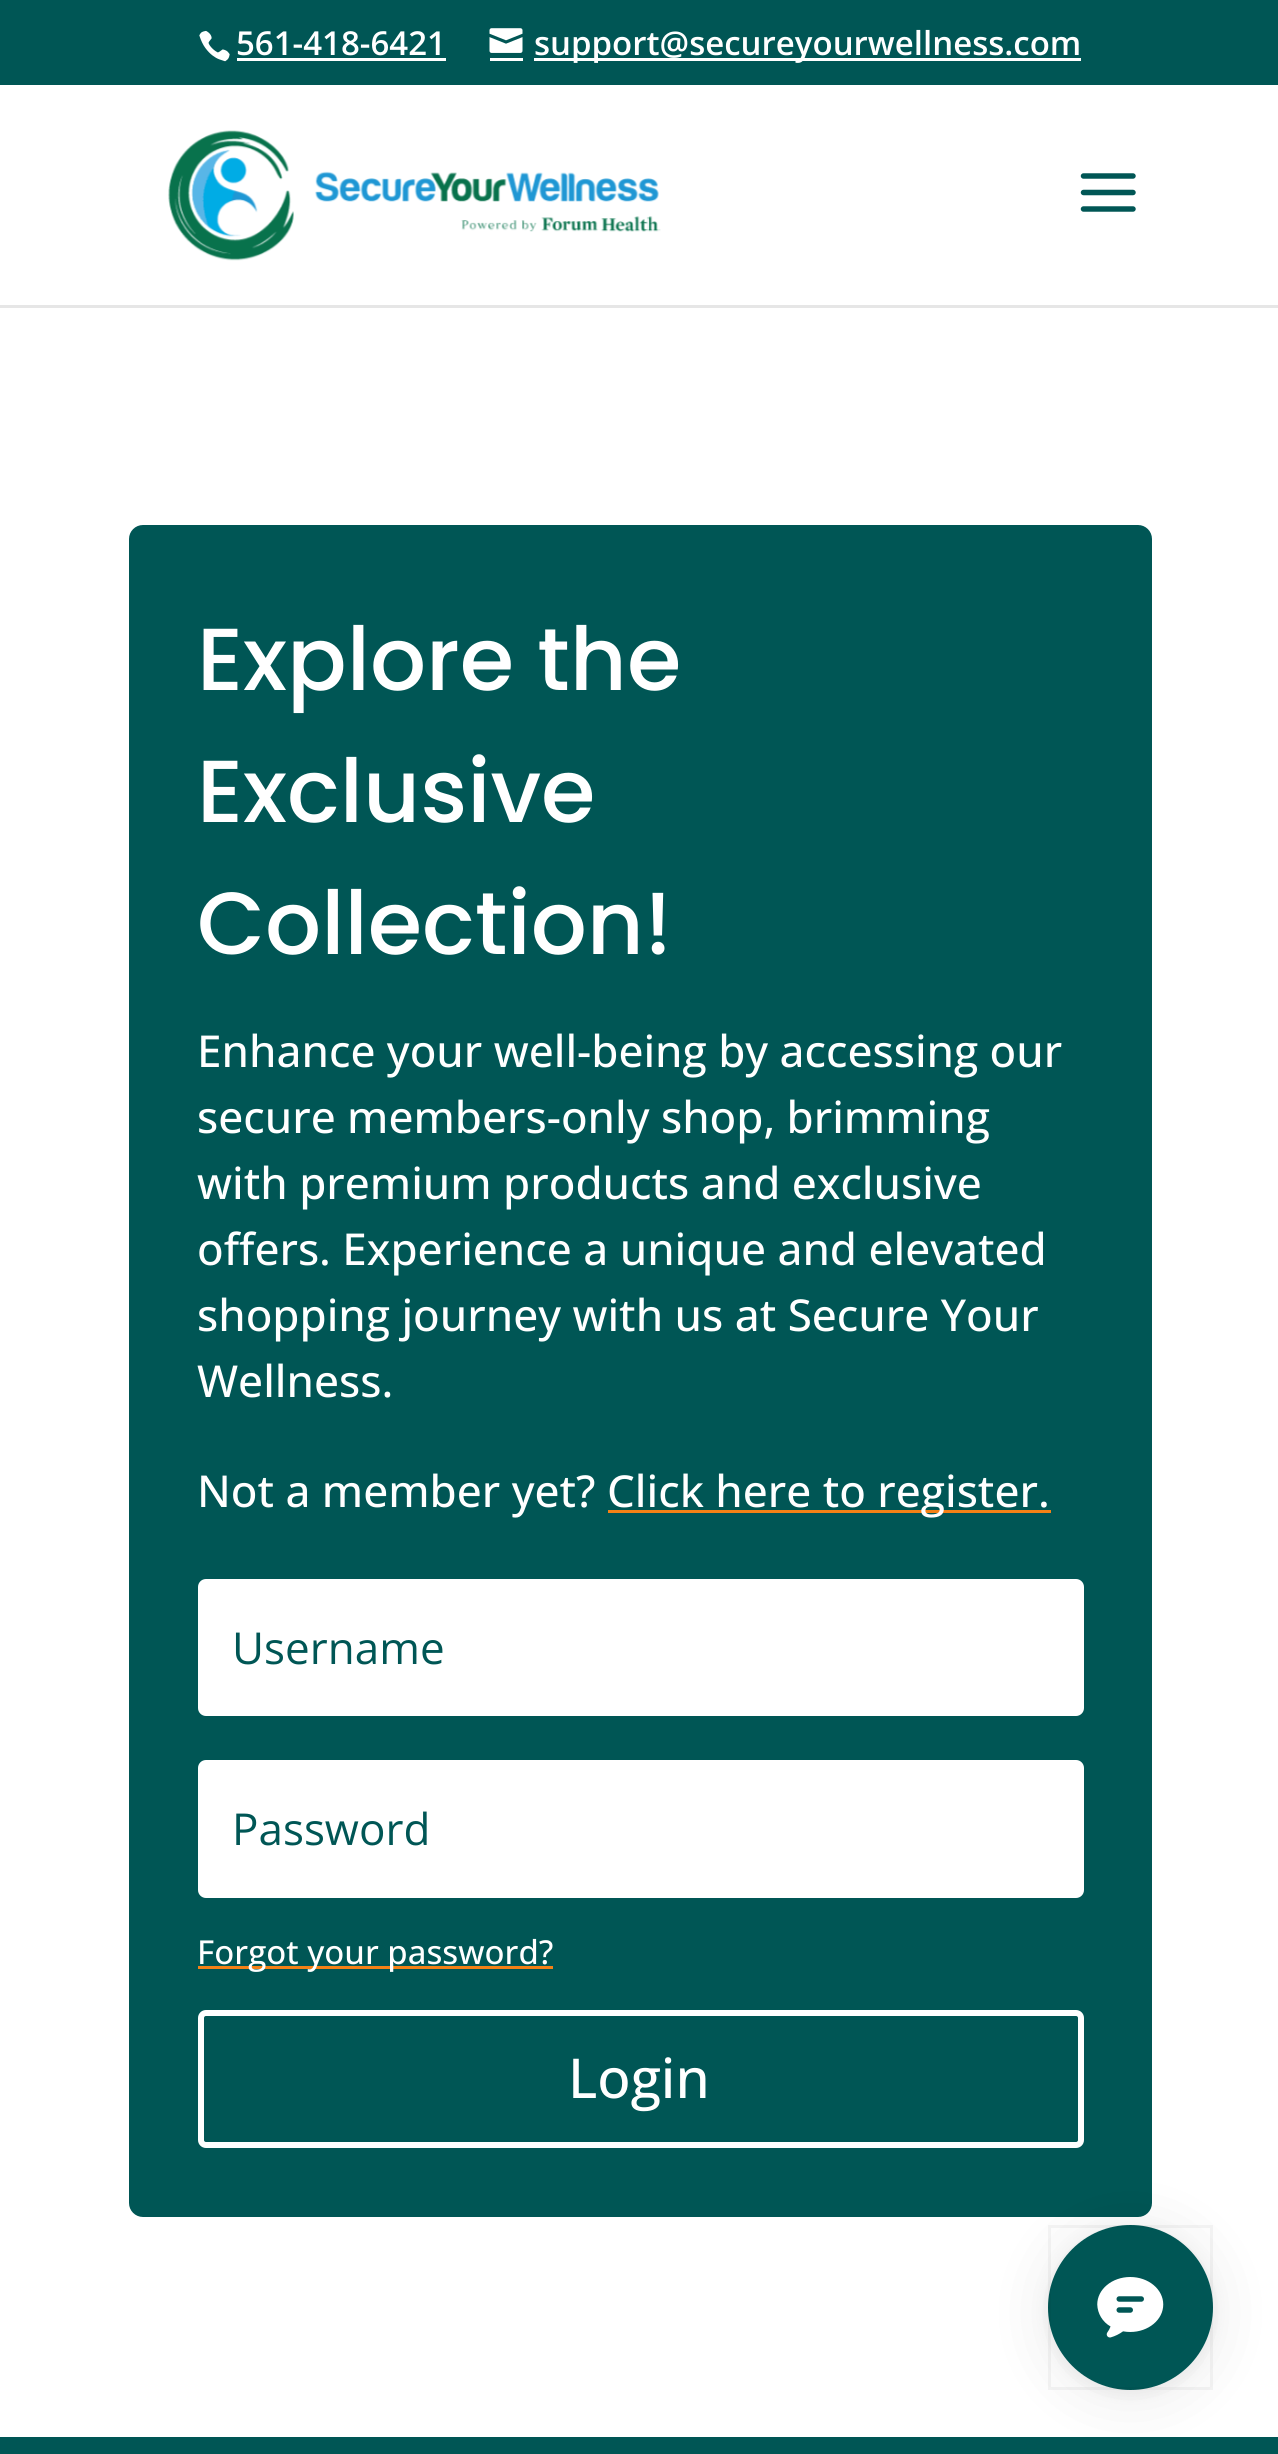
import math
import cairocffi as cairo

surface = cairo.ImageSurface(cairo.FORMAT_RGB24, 1278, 2454)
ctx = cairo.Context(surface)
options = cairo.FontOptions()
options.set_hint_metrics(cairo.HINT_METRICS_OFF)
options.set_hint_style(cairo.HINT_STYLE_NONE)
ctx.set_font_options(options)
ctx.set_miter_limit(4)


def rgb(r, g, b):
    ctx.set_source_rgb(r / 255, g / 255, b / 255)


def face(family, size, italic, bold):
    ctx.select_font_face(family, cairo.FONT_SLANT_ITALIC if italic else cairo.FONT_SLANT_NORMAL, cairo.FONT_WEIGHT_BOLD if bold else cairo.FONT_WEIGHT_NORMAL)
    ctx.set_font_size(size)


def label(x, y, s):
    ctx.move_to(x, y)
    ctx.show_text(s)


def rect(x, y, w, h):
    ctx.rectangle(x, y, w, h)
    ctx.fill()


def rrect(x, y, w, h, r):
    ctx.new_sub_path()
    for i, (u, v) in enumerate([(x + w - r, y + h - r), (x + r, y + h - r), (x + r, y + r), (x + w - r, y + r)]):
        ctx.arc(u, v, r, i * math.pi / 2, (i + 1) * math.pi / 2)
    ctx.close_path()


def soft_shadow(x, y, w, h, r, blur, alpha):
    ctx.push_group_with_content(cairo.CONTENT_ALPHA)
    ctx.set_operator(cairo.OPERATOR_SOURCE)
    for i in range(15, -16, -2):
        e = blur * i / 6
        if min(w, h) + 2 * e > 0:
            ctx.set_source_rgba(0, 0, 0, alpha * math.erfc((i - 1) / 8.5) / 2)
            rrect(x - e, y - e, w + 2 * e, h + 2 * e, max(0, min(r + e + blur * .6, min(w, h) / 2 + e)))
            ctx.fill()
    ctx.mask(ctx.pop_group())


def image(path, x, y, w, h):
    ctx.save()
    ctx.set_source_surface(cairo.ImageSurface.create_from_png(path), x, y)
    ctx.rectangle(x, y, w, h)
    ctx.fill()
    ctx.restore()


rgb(0, 86, 85)
ctx.paint()
image('image0.png', 199, 30, 31, 32)
face('Open Sans SemiBold', 33, 0, 0)
rgb(255, 255, 255)
label(236, 55, '561-418-6421')
rect(237, 58, 209, 3)
image('image1.png', 489, 28, 34, 25)
rect(534, 58, 547, 3)
label(534, 55, 'support@secureyourwellness.com')
rect(490, 58, 33, 3)
rgb(230, 230, 230)
ctx.new_path()
ctx.move_to(0, 305)
ctx.line_to(0, 308)
ctx.line_to(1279, 308)
ctx.line_to(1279, 88)
ctx.line_to(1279, 305)
ctx.close_path()
ctx.fill()
rgb(255, 255, 255)
rect(0, 85, 1278, 220)
image('image2.png', 168, 130, 493, 131)
image('image3.png', 1080, 173, 56, 39)
rect(0, 308, 1278, 2129)
rgb(0, 86, 85)
rrect(129, 525, 1023, 1692, 14)
ctx.fill()
face('Poppins Medium', 88, 0, 0)
rgb(255, 255, 255)
label(197, 690, 'Explore the')
label(197, 822, 'Exclusive')
label(197, 954, 'Collection!')
face('Open Sans Medium', 44, 0, 0)
label(197, 1067, 'Enhance your well-being by accessing our')
label(197, 1133, 'secure members-only shop, brimming')
label(197, 1199, 'with premium products and exclusive')
label(197, 1265, 'offers. Experience a unique and elevated')
label(197, 1331, 'shopping journey with us at Secure Your')
label(197, 1397, 'Wellness.')
label(197, 1507, 'Not a member yet?')
rgb(244, 129, 22)
rect(608, 1510, 443, 3)
rgb(255, 255, 255)
label(607, 1507, 'Click here to register.')
rrect(198, 1579, 886, 137, 8)
ctx.fill()
face('Open Sans', 44, 0, 0)
rgb(0, 86, 85)
label(232, 1664, 'Username')
rgb(255, 255, 255)
rrect(198, 1760, 886, 138, 8)
ctx.fill()
rgb(0, 86, 85)
label(232, 1845, 'Password')
rgb(244, 129, 22)
rect(198, 1966, 355, 3)
face('Open Sans Medium', 33, 0, 0)
rgb(255, 255, 255)
label(197, 1964, 'Forgot your password?')
rrect(201, 2013, 880, 132, 5)
ctx.set_line_width(6)
ctx.stroke()
face('Open Sans Medium', 55, 0, 0)
label(568, 2098, 'Login')
rgb(0, 0, 0)
soft_shadow(1048, 2230, 165, 165, 82.5, 33, 0.08)
soft_shadow(1048, 2228, 165, 165, 82.5, 8, 0.06)
rgb(0, 86, 85)
ctx.arc(1130.5, 2307.5, 82.5, 0, 2 * math.pi)
ctx.fill()
ctx.rectangle(1049.5, 2226.5, 162, 162)
ctx.set_source_rgba(0, 0, 0, 0.04)
ctx.set_line_width(3)
ctx.stroke()
image('image4.png', 1097, 2277, 67, 61)
surface.write_to_png('render.png')
